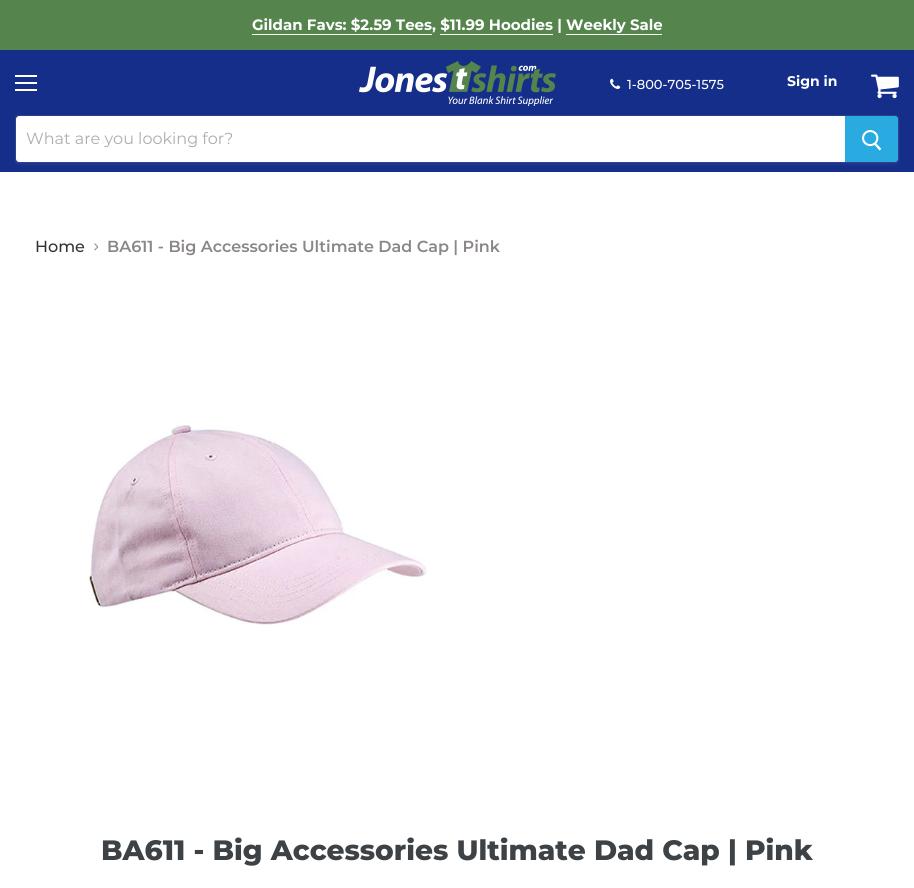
import math
import cairocffi as cairo

surface = cairo.ImageSurface(cairo.FORMAT_RGB24, 914, 888)
ctx = cairo.Context(surface)
options = cairo.FontOptions()
options.set_hint_metrics(cairo.HINT_METRICS_OFF)
options.set_hint_style(cairo.HINT_STYLE_NONE)
ctx.set_font_options(options)
ctx.set_miter_limit(4)


def rgb(r, g, b):
    ctx.set_source_rgb(r / 255, g / 255, b / 255)


def face(family, size, italic, bold):
    ctx.select_font_face(family, cairo.FONT_SLANT_ITALIC if italic else cairo.FONT_SLANT_NORMAL, cairo.FONT_WEIGHT_BOLD if bold else cairo.FONT_WEIGHT_NORMAL)
    ctx.set_font_size(size)


def label(x, y, s):
    ctx.move_to(x, y)
    ctx.show_text(s)


def rect(x, y, w, h):
    ctx.rectangle(x, y, w, h)
    ctx.fill()


def rrect(x, y, w, h, r):
    ctx.new_sub_path()
    for i, (u, v) in enumerate([(x + w - r, y + h - r), (x + r, y + h - r), (x + r, y + r), (x + w - r, y + r)]):
        ctx.arc(u, v, r, i * math.pi / 2, (i + 1) * math.pi / 2)
    ctx.close_path()


def soft_shadow(x, y, w, h, r, blur, alpha):
    ctx.push_group_with_content(cairo.CONTENT_ALPHA)
    ctx.set_operator(cairo.OPERATOR_SOURCE)
    for i in range(15, -16, -2):
        e = blur * i / 6
        if min(w, h) + 2 * e > 0:
            ctx.set_source_rgba(0, 0, 0, alpha * math.erfc((i - 1) / 8.5) / 2)
            rrect(x - e, y - e, w + 2 * e, h + 2 * e, max(0, min(r + e + blur * .6, min(w, h) / 2 + e)))
            ctx.fill()
    ctx.mask(ctx.pop_group())


def image(path, x, y, w, h):
    ctx.save()
    ctx.set_source_surface(cairo.ImageSurface.create_from_png(path), x, y)
    ctx.rectangle(x, y, w, h)
    ctx.fill()
    ctx.restore()


rgb(255, 255, 255)
ctx.paint()
rgb(85, 132, 77)
rect(0, 0, 914, 50)
face('Montserrat', 15, 0, 1)
rgb(255, 255, 255)
label(252, 30, 'Gildan Favs: $2.59 Tees, $11.99 Hoodies | Weekly Sale')
rect(252, 34, 180, 1)
rect(440, 34, 113, 1)
rect(566, 34, 96, 1)
rgb(20, 46, 138)
rect(0, 50, 914, 122)
rgb(255, 255, 255)
rect(15, 75, 22, 2)
rect(15, 82, 22, 2)
rect(15, 89, 22, 2)
image('image0.png', 610, 78, 11, 11)
face('Montserrat Medium', 13, 0, 0)
label(627, 89, '1-800-705-1575')
face('Montserrat', 14, 0, 1)
label(787, 86, 'Sign in')
image('image1.png', 871, 74, 28, 25)
image('image2.png', 359, 61, 197, 45)
rgb(127, 127, 127)
soft_shadow(15, 117, 884, 48, 4, 1.5, 0.11)
ctx.new_path()
ctx.move_to(18, 115.5)
ctx.line_to(895, 115.5)
ctx.curve_to(897, 115.5, 898.5, 117, 898.5, 119)
ctx.line_to(898.5, 159)
ctx.curve_to(898.5, 161, 897, 162.5, 895, 162.5)
ctx.line_to(18, 162.5)
ctx.curve_to(16.5, 162.5, 15.5, 161.5, 15.5, 160)
ctx.line_to(15.5, 118)
ctx.curve_to(15.5, 116.5, 16.5, 115.5, 18, 115.5)
ctx.close_path()
ctx.set_source_rgba(0.498, 0.498, 0.498, 0.2)
ctx.set_line_width(1)
ctx.stroke()
rgb(255, 255, 255)
ctx.new_path()
ctx.move_to(19, 116)
ctx.line_to(845, 116)
ctx.line_to(845, 162)
ctx.line_to(19, 162)
ctx.curve_to(17.5, 162, 16, 160.5, 16, 159)
ctx.line_to(16, 119)
ctx.curve_to(16, 117.5, 17.5, 116, 19, 116)
ctx.close_path()
ctx.fill()
face('Montserrat', 16, 0, 0)
rgb(173, 173, 173)
label(26, 144, 'What are you looking for?')
rgb(41, 171, 225)
ctx.new_path()
ctx.move_to(845.5, 116.5)
ctx.line_to(895, 116.5)
ctx.curve_to(896.5, 116.5, 897.5, 117.5, 897.5, 119)
ctx.line_to(897.5, 159)
ctx.curve_to(897.5, 160.5, 896.5, 161.5, 895, 161.5)
ctx.line_to(845.5, 161.5)
ctx.close_path()
ctx.fill_preserve()
ctx.stroke()
image('image3.png', 862, 130, 20, 21)
face('Montserrat Medium', 16, 0, 0)
rgb(51, 51, 51)
label(35, 252, 'Home')
image('image4.png', 94, 243, 5, 8)
face('Montserrat SemiBold', 16, 0, 0)
rgb(138, 135, 134)
label(107, 252, 'BA611 - Big Accessories Ultimate Dad Cap | Pink')
image('image5.png', 86, 425, 343, 200)
face('Montserrat ExtraBold', 28, 0, 0)
rgb(61, 66, 70)
label(101, 860, 'BA611 - Big Accessories Ultimate Dad Cap | Pink')
surface.write_to_png('render.png')
